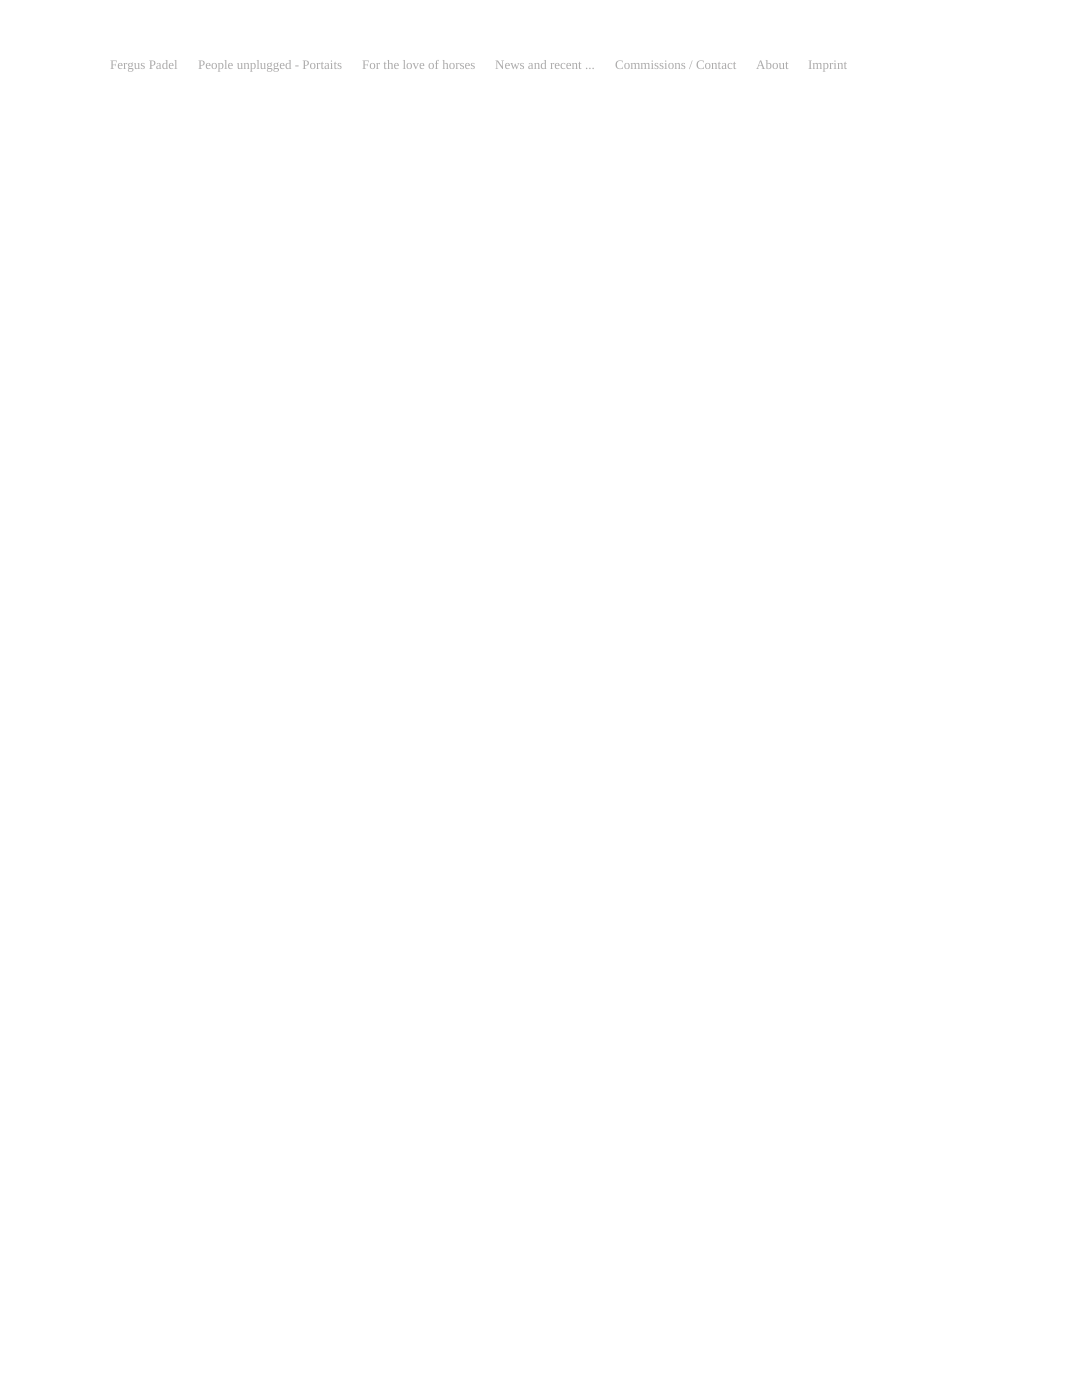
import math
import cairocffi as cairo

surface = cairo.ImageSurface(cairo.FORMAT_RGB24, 1087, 1385)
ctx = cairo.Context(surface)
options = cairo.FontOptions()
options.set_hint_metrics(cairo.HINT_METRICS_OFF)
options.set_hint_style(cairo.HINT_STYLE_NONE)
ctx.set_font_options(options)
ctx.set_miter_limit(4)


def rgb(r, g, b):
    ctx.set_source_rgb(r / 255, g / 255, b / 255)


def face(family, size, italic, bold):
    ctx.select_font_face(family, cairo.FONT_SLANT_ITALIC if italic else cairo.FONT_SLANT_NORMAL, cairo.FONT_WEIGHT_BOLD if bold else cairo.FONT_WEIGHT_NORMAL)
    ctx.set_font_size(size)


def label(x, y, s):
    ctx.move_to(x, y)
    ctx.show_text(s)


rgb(255, 255, 255)
ctx.paint()
face('Liberation Serif', 13, 0, 0)
rgb(172, 171, 171)
label(110, 69, 'Fergus Padel')
label(198, 69, 'People unplugged - Portaits')
label(362, 69, 'For the love of horses')
label(495, 69, 'News and recent ...')
label(615, 69, 'Commissions / Contact')
label(756, 69, 'About')
label(808, 69, 'Imprint')
surface.write_to_png('render.png')
